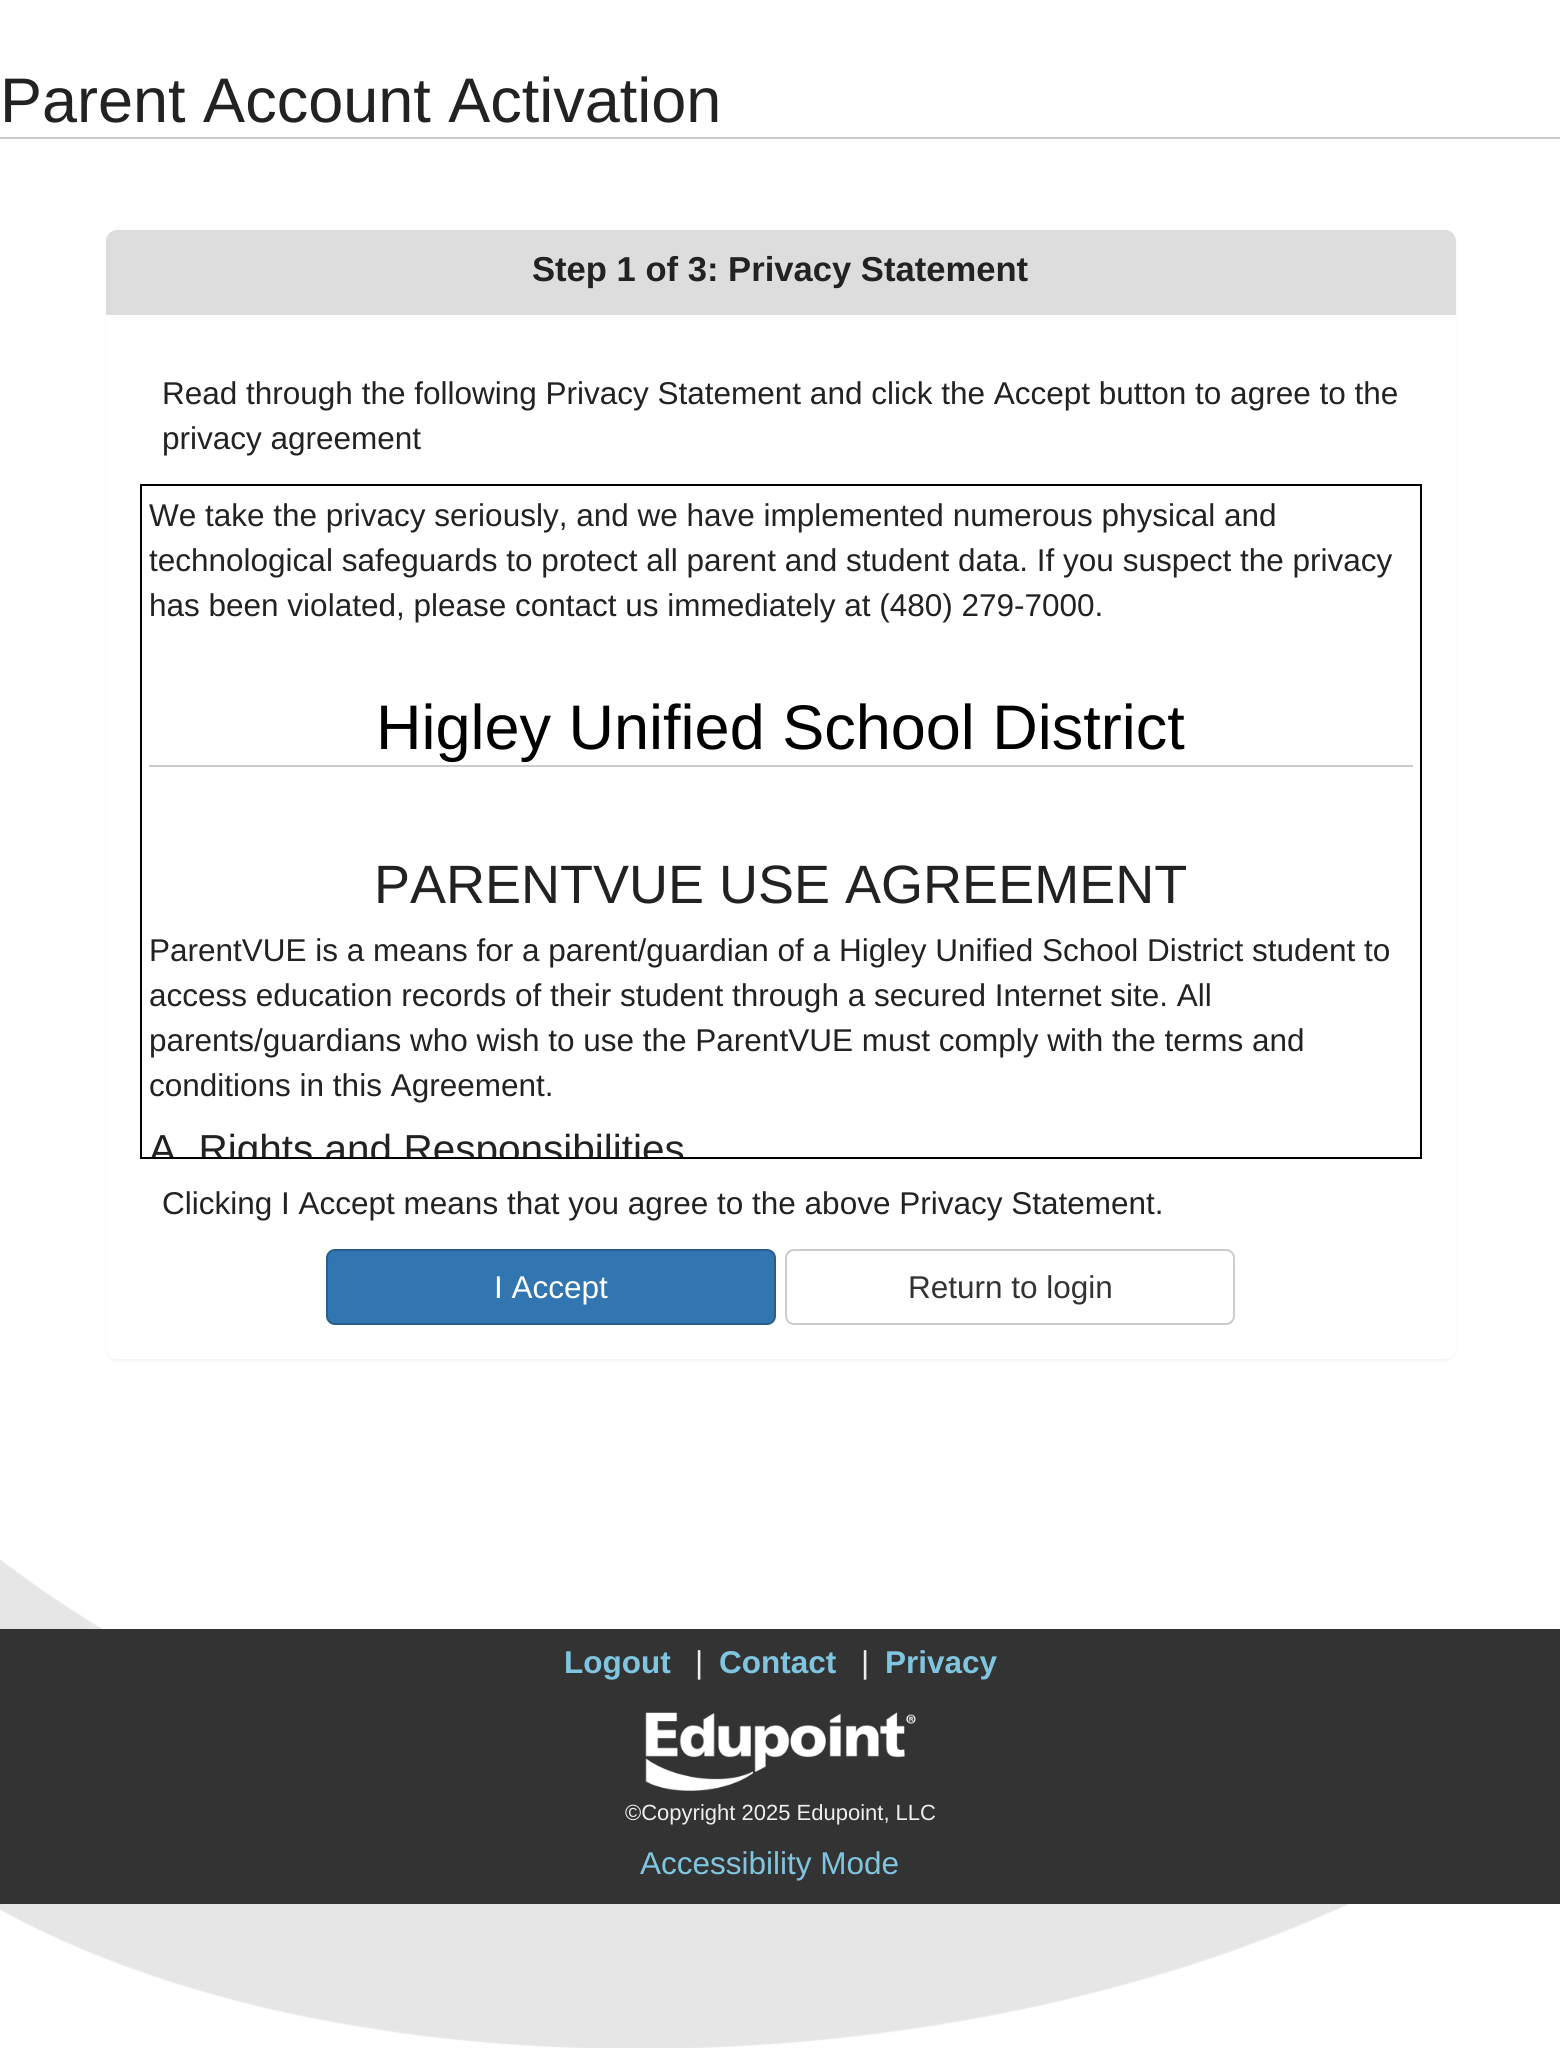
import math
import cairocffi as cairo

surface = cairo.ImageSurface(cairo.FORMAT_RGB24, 1560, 2048)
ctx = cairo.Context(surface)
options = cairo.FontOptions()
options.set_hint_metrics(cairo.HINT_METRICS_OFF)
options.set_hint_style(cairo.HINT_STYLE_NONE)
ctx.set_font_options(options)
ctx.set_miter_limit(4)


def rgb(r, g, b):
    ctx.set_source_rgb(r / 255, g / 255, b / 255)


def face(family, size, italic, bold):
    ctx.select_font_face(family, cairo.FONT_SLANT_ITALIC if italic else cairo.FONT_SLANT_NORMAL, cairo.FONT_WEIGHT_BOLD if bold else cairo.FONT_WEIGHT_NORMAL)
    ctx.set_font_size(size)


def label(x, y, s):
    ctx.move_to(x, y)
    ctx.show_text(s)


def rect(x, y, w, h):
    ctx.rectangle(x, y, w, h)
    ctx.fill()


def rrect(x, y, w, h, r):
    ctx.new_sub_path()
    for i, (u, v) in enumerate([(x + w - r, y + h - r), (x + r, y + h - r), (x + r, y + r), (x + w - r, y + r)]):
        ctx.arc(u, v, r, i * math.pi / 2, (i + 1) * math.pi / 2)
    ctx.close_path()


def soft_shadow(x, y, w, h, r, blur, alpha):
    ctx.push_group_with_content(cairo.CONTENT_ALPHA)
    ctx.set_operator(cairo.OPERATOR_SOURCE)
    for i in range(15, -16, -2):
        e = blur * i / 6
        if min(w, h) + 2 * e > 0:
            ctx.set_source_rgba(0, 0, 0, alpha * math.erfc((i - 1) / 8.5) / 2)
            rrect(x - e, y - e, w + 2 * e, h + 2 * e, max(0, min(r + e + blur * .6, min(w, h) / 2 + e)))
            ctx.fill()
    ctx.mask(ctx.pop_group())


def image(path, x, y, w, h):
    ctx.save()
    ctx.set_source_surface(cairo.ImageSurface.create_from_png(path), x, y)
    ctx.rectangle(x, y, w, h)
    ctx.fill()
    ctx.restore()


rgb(255, 255, 255)
ctx.paint()
image('image0.png', 0, 1559, 1349, 489)
rgb(204, 204, 204)
rect(0, 137, 1560, 2)
face('Liberation Sans', 63, 0, 0)
rgb(34, 34, 34)
label(0, 122, 'Parent Account Activation')
rgb(0, 0, 0)
soft_shadow(106, 232, 1350, 1129, 11, 1, 0.05)
rgb(255, 255, 255)
rrect(106, 230, 1350, 1129, 11)
ctx.fill()
rgb(221, 221, 221)
ctx.new_path()
ctx.move_to(117, 230)
ctx.line_to(1445, 230)
ctx.curve_to(1451, 230, 1456, 235, 1456, 241)
ctx.line_to(1456, 315)
ctx.line_to(106, 315)
ctx.line_to(106, 241)
ctx.curve_to(106, 235, 111, 230, 117, 230)
ctx.close_path()
ctx.fill()
face('Liberation Sans', 34.6, 0, 1)
rgb(34, 34, 34)
label(532, 281, 'Step 1 of 3: Privacy Statement')
face('Liberation Sans', 31.5, 0, 0)
label(162, 404, 'Read through the following Privacy Statement and click the Accept button to agree to the')
label(162, 449, 'privacy agreement')
ctx.rectangle(141, 485, 1280, 673)
rgb(0, 0, 0)
ctx.stroke()
rgb(34, 34, 34)
label(149, 526, 'We take the privacy seriously, and we have implemented numerous physical and')
label(149, 571, 'technological safeguards to protect all parent and student data. If you suspect the privacy')
label(149, 616, 'has been violated, please contact us immediately at (480) 279-7000.')
rgb(204, 204, 204)
rect(149, 765, 1264, 2)
face('Liberation Sans', 63, 0, 0)
rgb(0, 0, 0)
label(376, 749, 'Higley Unified School District')
face('Liberation Sans', 54, 0, 0)
rgb(34, 34, 34)
label(374, 903, 'PARENTVUE USE AGREEMENT')
face('Liberation Sans', 31.5, 0, 0)
label(149, 961, 'ParentVUE is a means for a parent/guardian of a Higley Unified School District student to')
label(149, 1006, 'access education records of their student through a secured Internet site. All')
label(149, 1051, 'parents/guardians who wish to use the ParentVUE must comply with the terms and')
label(149, 1096, 'conditions in this Agreement.')
ctx.save()
ctx.rectangle(142, 486, 1278, 671)
ctx.clip()
face('Liberation Sans', 40.5, 0, 0)
label(149, 1163, 'A. Rights and Responsibilities')
ctx.restore()
label(162, 1214, 'Clicking I Accept means that you agree to the above Privacy Statement.')
rgb(50, 118, 177)
rrect(327, 1250, 448, 74, 8)
ctx.fill_preserve()
rgb(40, 94, 142)
ctx.stroke()
rgb(255, 255, 255)
label(494, 1298, 'I Accept')
rrect(786, 1250, 448, 74, 8)
rgb(204, 204, 204)
ctx.stroke()
rgb(51, 51, 51)
label(908, 1298, 'Return to login')
rect(0, 1629, 1560, 275)
face('Liberation Sans', 31.5, 0, 1)
rgb(128, 197, 224)
label(564, 1673, 'Logout')
face('Liberation Sans', 31.5, 0, 0)
rgb(238, 238, 238)
label(695, 1673, '|')
face('Liberation Sans', 31.5, 0, 1)
rgb(128, 197, 224)
label(719, 1673, 'Contact')
face('Liberation Sans', 31.5, 0, 0)
rgb(238, 238, 238)
label(861, 1673, '|')
face('Liberation Sans', 31.5, 0, 1)
rgb(128, 197, 224)
label(885, 1673, 'Privacy')
image('image1.png', 645, 1712, 271, 79)
face('Liberation Sans', 22, 0, 0)
rgb(238, 238, 238)
label(625, 1820, '©Copyright 2025 Edupoint, LLC')
face('Liberation Sans', 31.5, 0, 0)
rgb(128, 197, 224)
label(640, 1874, 'Accessibility Mode')
surface.write_to_png('render.png')
